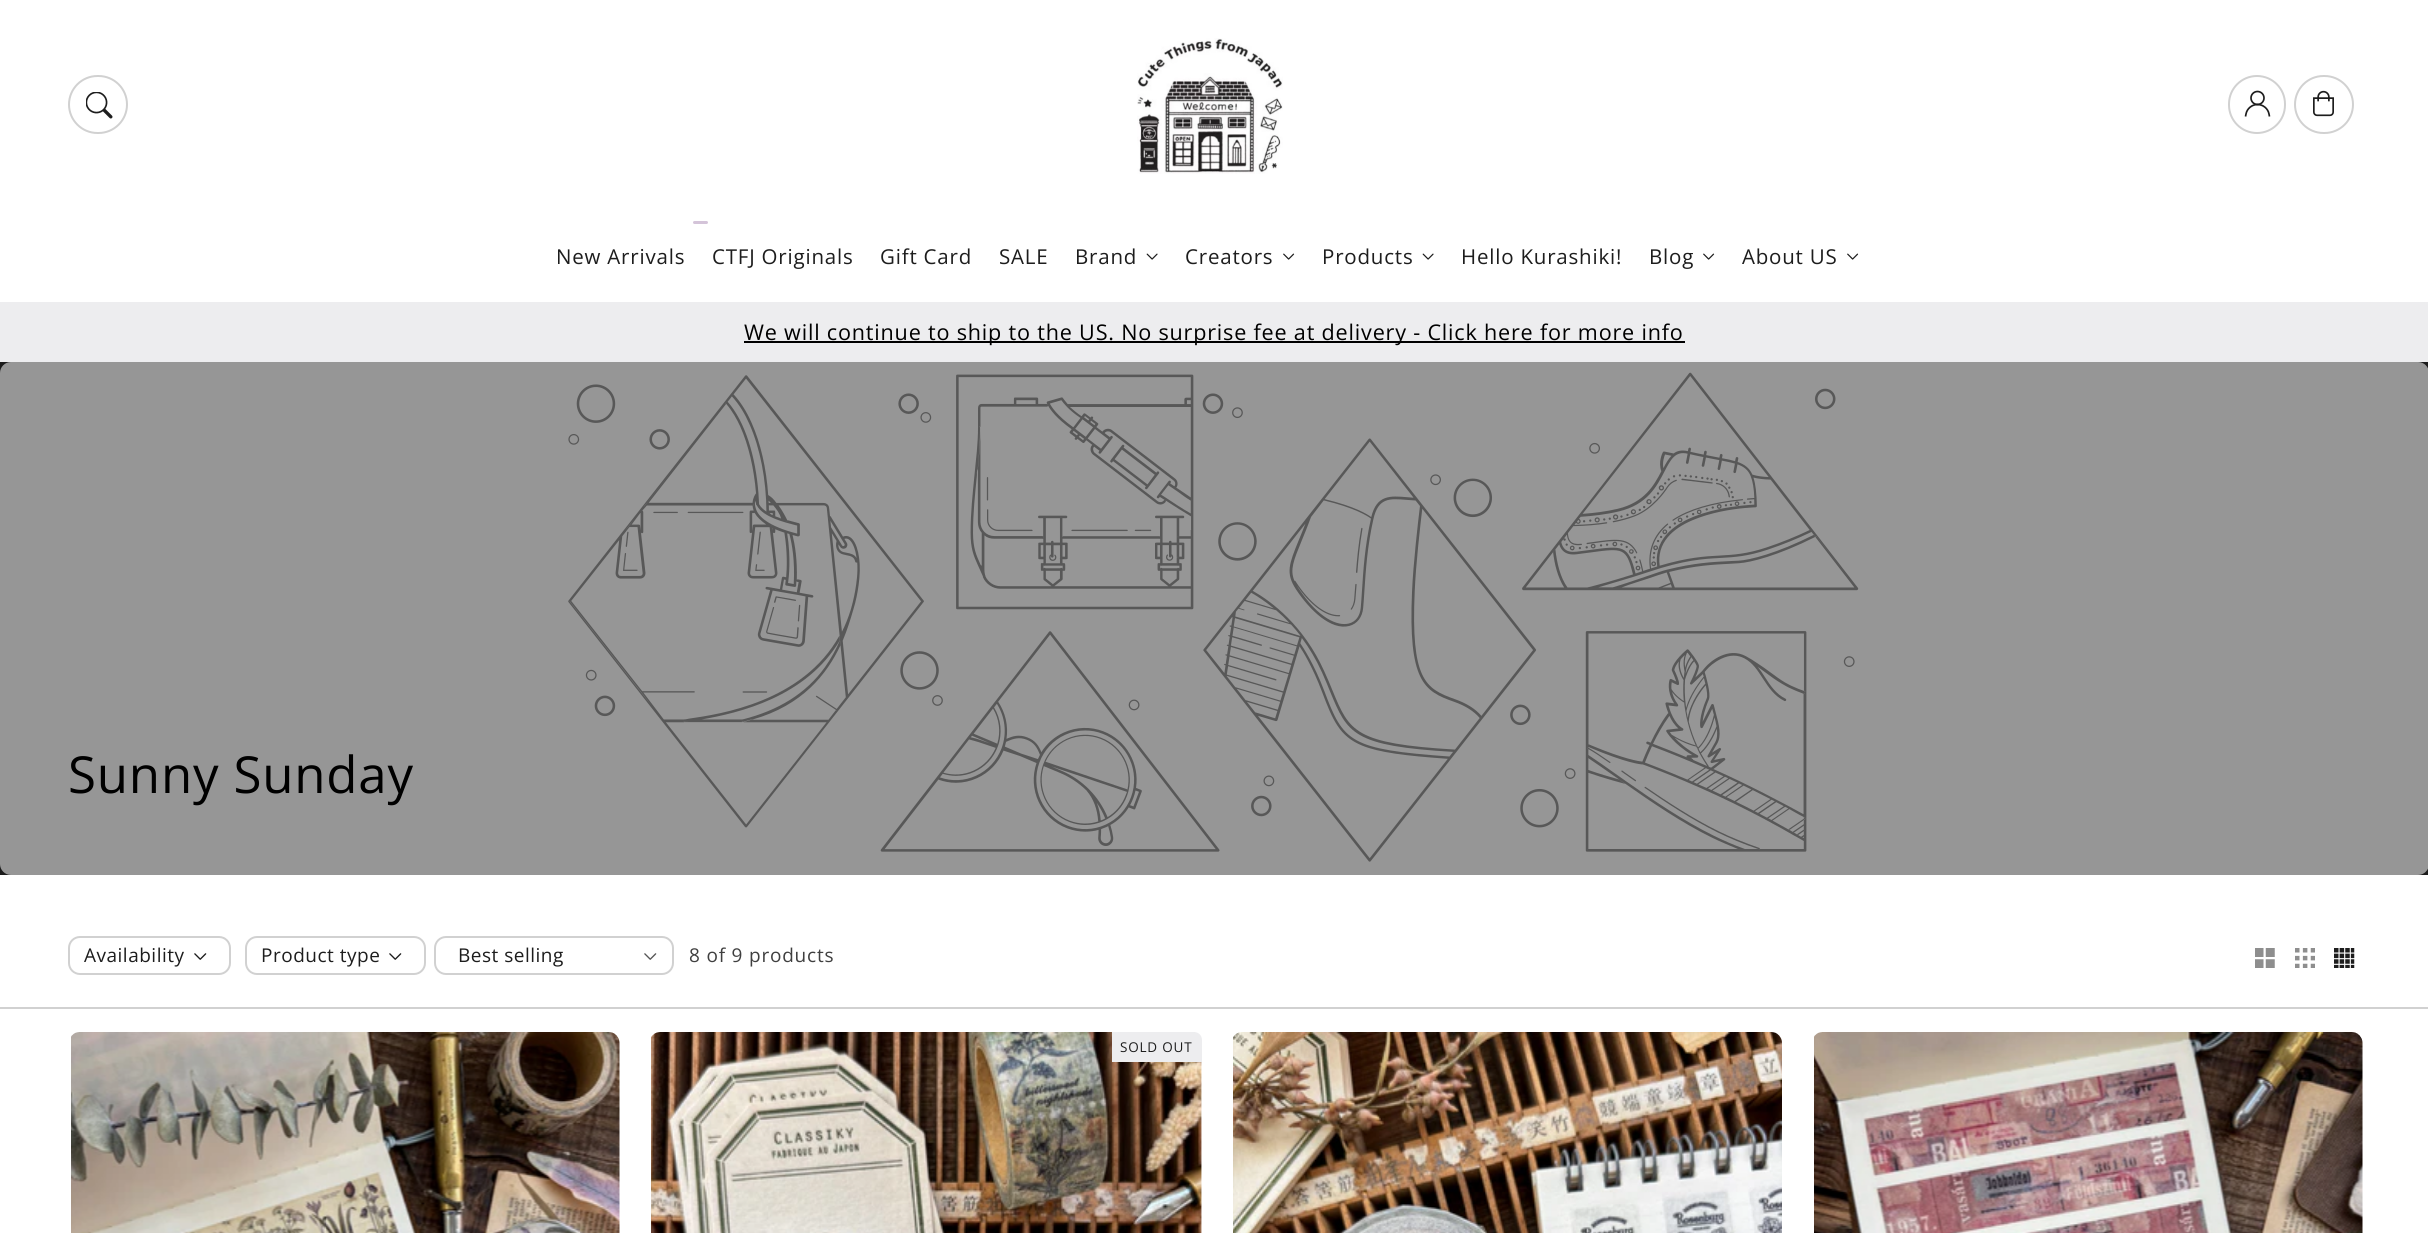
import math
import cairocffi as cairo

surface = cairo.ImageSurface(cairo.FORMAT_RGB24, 2428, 1233)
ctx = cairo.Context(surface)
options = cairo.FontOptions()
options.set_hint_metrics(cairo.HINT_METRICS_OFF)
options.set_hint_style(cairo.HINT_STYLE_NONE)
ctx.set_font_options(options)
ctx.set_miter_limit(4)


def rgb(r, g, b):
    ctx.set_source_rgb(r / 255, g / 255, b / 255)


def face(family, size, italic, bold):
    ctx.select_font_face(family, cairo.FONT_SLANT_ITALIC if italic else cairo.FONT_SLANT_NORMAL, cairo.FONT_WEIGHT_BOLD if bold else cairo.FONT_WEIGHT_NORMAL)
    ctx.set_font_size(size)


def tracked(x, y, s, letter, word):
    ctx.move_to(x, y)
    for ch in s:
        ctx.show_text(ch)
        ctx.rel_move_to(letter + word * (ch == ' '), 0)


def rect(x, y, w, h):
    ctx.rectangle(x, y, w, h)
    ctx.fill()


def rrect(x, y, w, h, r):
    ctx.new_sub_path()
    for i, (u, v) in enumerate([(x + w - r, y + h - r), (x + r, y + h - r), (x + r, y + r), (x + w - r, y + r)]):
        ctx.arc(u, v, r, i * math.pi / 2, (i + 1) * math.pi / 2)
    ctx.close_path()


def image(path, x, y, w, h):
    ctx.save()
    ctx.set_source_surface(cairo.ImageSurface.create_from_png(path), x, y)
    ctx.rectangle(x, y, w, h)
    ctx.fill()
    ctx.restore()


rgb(255, 255, 255)
ctx.paint()
rrect(69, 76, 58, 57, 28.5)
rgb(209, 209, 209)
ctx.stroke()
image('image0.png', 86, 92, 27, 27)
image('image1.png', 1137, 38, 146, 136)
rrect(2229, 76, 56, 57, 28)
ctx.stroke()
ctx.arc(2257.5, 98, 6.5, 0, 2 * math.pi)
rgb(29, 29, 29)
ctx.set_line_width(1.7)
ctx.stroke()
ctx.new_path()
ctx.move_to(2245.5, 116.5)
ctx.line_to(2246, 114)
ctx.curve_to(2247, 108.5, 2252, 104.5, 2257.5, 104.5)
ctx.curve_to(2263, 104.5, 2268, 108.5, 2269, 114)
ctx.line_to(2269.5, 116.5)
ctx.stroke()
rrect(2295, 76, 58, 57, 28.5)
rgb(209, 209, 209)
ctx.set_line_width(2)
ctx.stroke()
image('image2.png', 2313, 90, 21, 27)
rgb(212, 196, 217)
rrect(693, 221, 15, 3, 1.5)
ctx.fill()
face('Open Sans', 20.5, 0, 0)
rgb(29, 29, 29)
tracked(556, 264, 'New Arrivals', 0.8, 0)
tracked(712, 264, 'CTFJ Originals', 0.8, 0)
tracked(880, 264, 'Gift Card', 0.8, 0)
tracked(999, 264, 'SALE', 0.8, 0)
tracked(1075, 264, 'Brand', 0.8, 0)
image('image3.png', 1146, 253, 12, 7)
tracked(1185, 264, 'Creators', 0.8, 0)
image('image4.png', 1283, 253, 12, 7)
tracked(1322, 264, 'Products', 0.8, 0)
image('image3.png', 1422, 253, 12, 7)
tracked(1461, 264, 'Hello Kurashiki!', 0.8, 0)
tracked(1649, 264, 'Blog', 0.8, 0)
image('image4.png', 1703, 253, 12, 7)
tracked(1742, 264, 'About US', 0.8, 0)
image('image4.png', 1847, 253, 12, 7)
rgb(237, 237, 239)
rect(0, 302, 2428, 60)
rgb(0, 0, 0)
rect(744, 341, 941, 2)
face('Open Sans', 21.6, 0, 0)
tracked(744, 340, 'We will continue to ship to the US. No surprise fee at delivery - Click here for more info', 0.8, 0)
rgb(27, 27, 27)
rect(0, 362, 2428, 513)
rgb(150, 150, 150)
rrect(0, 362, 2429, 513, 11)
ctx.fill()
image('image5.png', 568, 372, 1291, 490)
face('Open Sans', 51, 0, 0)
rgb(0, 0, 0)
tracked(68, 793, 'Sunny Sunday', 0.8, 0)
rgb(209, 209, 209)
rect(0, 1007, 2428, 2)
rrect(69, 937, 161, 37, 11)
ctx.stroke()
face('Open Sans', 19, 0, 0)
rgb(29, 29, 29)
tracked(84, 962, 'Availability', 0.5, 0)
image('image6.png', 194, 953, 13, 7)
rrect(246, 937, 179, 37, 11)
rgb(209, 209, 209)
ctx.stroke()
rgb(29, 29, 29)
tracked(261, 962, 'Product type', 0.5, 0)
image('image6.png', 389, 953, 13, 7)
rrect(435, 937, 238, 37, 11)
rgb(209, 209, 209)
ctx.stroke()
rgb(29, 29, 29)
tracked(458, 962, 'Best selling', 0.5, 0)
image('image7.png', 644, 953, 13, 7)
rgb(63, 63, 63)
tracked(689, 962, '8 of 9 products', 0.8, 0)
image('image8.png', 2255, 948, 20, 20)
image('image9.png', 2295, 948, 20, 20)
image('image10.png', 2334, 948, 21, 20)
image('image11.png', 71, 1032, 549, 201)
image('image12.png', 651, 1032, 551, 201)
rgb(237, 237, 239)
ctx.new_path()
ctx.move_to(1112, 1032)
ctx.line_to(1194, 1032)
ctx.curve_to(1198.5, 1032, 1202, 1035.5, 1202, 1040)
ctx.line_to(1202, 1062)
ctx.line_to(1112, 1062)
ctx.close_path()
ctx.fill()
face('Open Sans', 13.5, 0, 0)
rgb(29, 29, 29)
tracked(1120, 1052, 'SOLD OUT', 0.8, 0)
image('image13.png', 1233, 1032, 549, 201)
image('image14.png', 1814, 1032, 549, 201)
surface.write_to_png('render.png')
